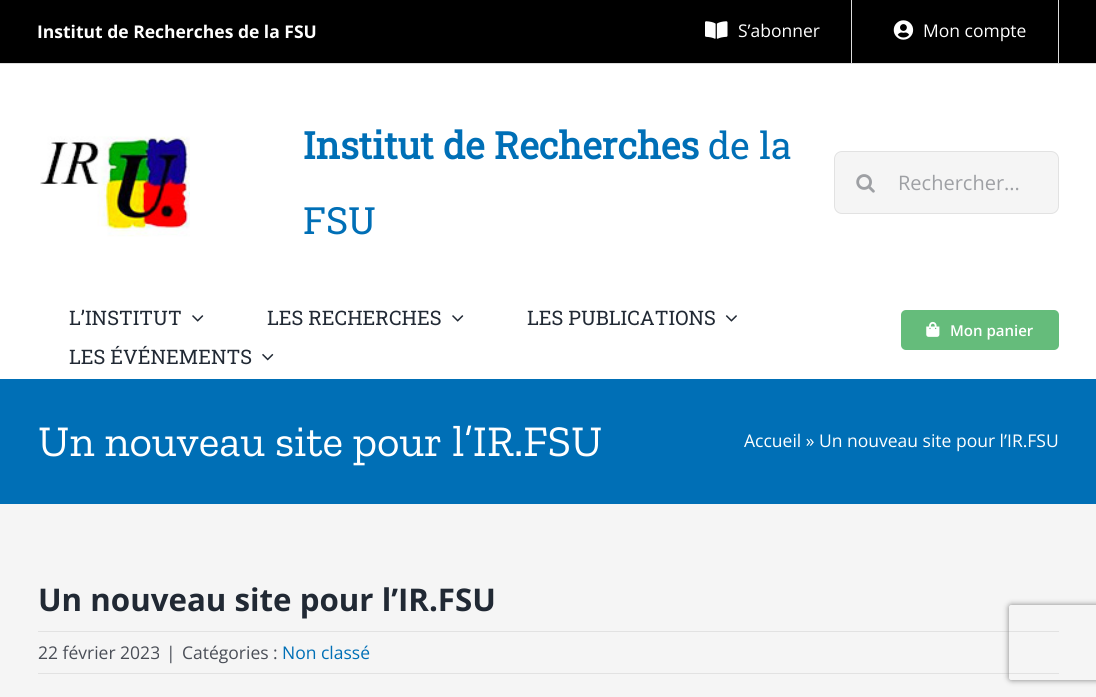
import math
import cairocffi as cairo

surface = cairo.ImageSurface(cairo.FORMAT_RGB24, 1096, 697)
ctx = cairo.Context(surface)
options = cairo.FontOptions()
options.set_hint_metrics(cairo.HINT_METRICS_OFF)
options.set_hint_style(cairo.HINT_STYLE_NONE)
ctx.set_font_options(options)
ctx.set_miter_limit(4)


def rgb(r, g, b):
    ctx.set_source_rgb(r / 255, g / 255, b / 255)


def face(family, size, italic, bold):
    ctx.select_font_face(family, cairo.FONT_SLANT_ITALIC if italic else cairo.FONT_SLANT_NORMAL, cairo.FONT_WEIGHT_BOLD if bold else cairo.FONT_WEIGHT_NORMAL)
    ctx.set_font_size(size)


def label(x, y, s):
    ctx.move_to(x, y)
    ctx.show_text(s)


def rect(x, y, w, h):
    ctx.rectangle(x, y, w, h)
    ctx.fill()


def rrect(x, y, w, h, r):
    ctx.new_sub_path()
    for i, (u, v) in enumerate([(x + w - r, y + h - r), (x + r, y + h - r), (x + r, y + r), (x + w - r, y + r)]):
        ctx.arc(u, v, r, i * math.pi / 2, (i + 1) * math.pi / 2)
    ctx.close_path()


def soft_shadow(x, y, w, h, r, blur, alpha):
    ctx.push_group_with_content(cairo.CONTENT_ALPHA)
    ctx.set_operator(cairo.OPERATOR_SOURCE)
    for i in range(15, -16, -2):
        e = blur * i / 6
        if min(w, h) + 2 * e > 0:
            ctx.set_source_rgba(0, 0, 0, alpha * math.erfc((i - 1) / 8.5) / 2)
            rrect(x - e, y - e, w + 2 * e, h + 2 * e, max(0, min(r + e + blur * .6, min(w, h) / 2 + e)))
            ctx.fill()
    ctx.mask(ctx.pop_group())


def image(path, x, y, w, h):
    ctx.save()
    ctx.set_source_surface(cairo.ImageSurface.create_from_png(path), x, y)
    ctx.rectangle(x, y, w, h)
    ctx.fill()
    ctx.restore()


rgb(245, 245, 245)
ctx.paint()
rgb(0, 0, 0)
rect(0, 0, 1096, 63)
rgb(221, 221, 221)
rect(0, 63, 1096, 1)
face('Open Sans', 17.5, 0, 1)
rgb(255, 255, 255)
label(37, 38, 'Institut de Recherches de la FSU')
image('image0.png', 705, 21, 23, 18)
face('Open Sans', 17.5, 0, 0)
label(738, 37, 'S’abonner')
rgb(221, 221, 221)
rect(851, 0, 1, 63)
image('image1.png', 893, 20, 21, 20)
rgb(255, 255, 255)
label(923, 37, 'Mon compte')
rgb(221, 221, 221)
rect(1058, 0, 1, 63)
rgb(255, 255, 255)
rect(0, 64, 1096, 315)
image('image2.png', 40, 136, 150, 101)
face('Roboto Slab', 37.5, 0, 1)
rgb(0, 111, 182)
label(303, 159, 'Institut de Recherches')
face('Roboto Slab', 37.5, 0, 0)
label(708, 159, 'de la')
label(303, 234, 'FSU')
rgb(245, 245, 245)
rrect(834.5, 151.5, 224, 62, 7.5)
ctx.fill_preserve()
rgb(226, 226, 226)
ctx.set_line_width(1)
ctx.stroke()
image('image3.png', 856, 174, 19, 19)
face('Open Sans', 20, 0, 0)
rgb(158, 160, 164)
label(898, 190, 'Rechercher...')
face('Roboto Slab', 20, 0, 0)
rgb(33, 41, 52)
label(69, 325, 'L’INSTITUT')
image('image4.png', 192, 315, 12, 7)
label(267, 325, 'LES RECHERCHES')
image('image4.png', 452, 315, 12, 7)
label(527, 325, 'LES PUBLICATIONS')
image('image5.png', 725, 315, 12, 7)
label(69, 364, 'LES ÉVÉNEMENTS')
image('image6.png', 262, 353, 12, 8)
rgb(101, 188, 123)
rrect(901, 310, 158, 40, 5)
ctx.fill()
image('image7.png', 926, 321, 14, 16)
face('Open Sans SemiBold', 15, 0, 0)
rgb(255, 255, 255)
label(950, 336, 'Mon panier')
rgb(0, 111, 182)
rect(0, 379, 1096, 125)
face('Zilla Slab', 43.75, 0, 0)
rgb(255, 255, 255)
label(38, 456, 'Un nouveau site pour l’IR.FSU')
face('Open Sans', 17.5, 0, 0)
label(744, 447, 'Accueil » Un nouveau site pour l’IR.FSU')
face('Open Sans', 31.25, 0, 1)
rgb(33, 41, 52)
label(38, 611, 'Un nouveau site pour l’IR.FSU')
rgb(226, 226, 226)
rect(38, 631, 1021, 1)
rect(38, 673, 1021, 1)
face('Open Sans', 17.5, 0, 0)
rgb(74, 78, 87)
label(38, 659, '22 février 2023')
label(166, 659, '|')
label(182, 659, 'Catégories :')
rgb(0, 111, 182)
label(282, 659, 'Non classé')
ctx.save()
ctx.set_fill_rule(cairo.FILL_RULE_EVEN_ODD)
ctx.new_path()
ctx.move_to(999, 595)
ctx.line_to(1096, 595)
ctx.line_to(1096, 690)
ctx.line_to(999, 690)
ctx.close_path()
ctx.move_to(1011.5, 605)
ctx.line_to(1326.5, 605)
ctx.curve_to(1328, 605, 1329, 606, 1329, 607.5)
ctx.line_to(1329, 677.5)
ctx.curve_to(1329, 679, 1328, 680, 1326.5, 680)
ctx.line_to(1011.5, 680)
ctx.curve_to(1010, 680, 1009, 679, 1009, 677.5)
ctx.line_to(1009, 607.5)
ctx.curve_to(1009, 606, 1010, 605, 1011.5, 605)
ctx.close_path()
ctx.clip()
rgb(128, 128, 128)
soft_shadow(1009, 605, 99, 75, 2.5, 3, 1)
ctx.restore()
surface.write_to_png('render.png')
